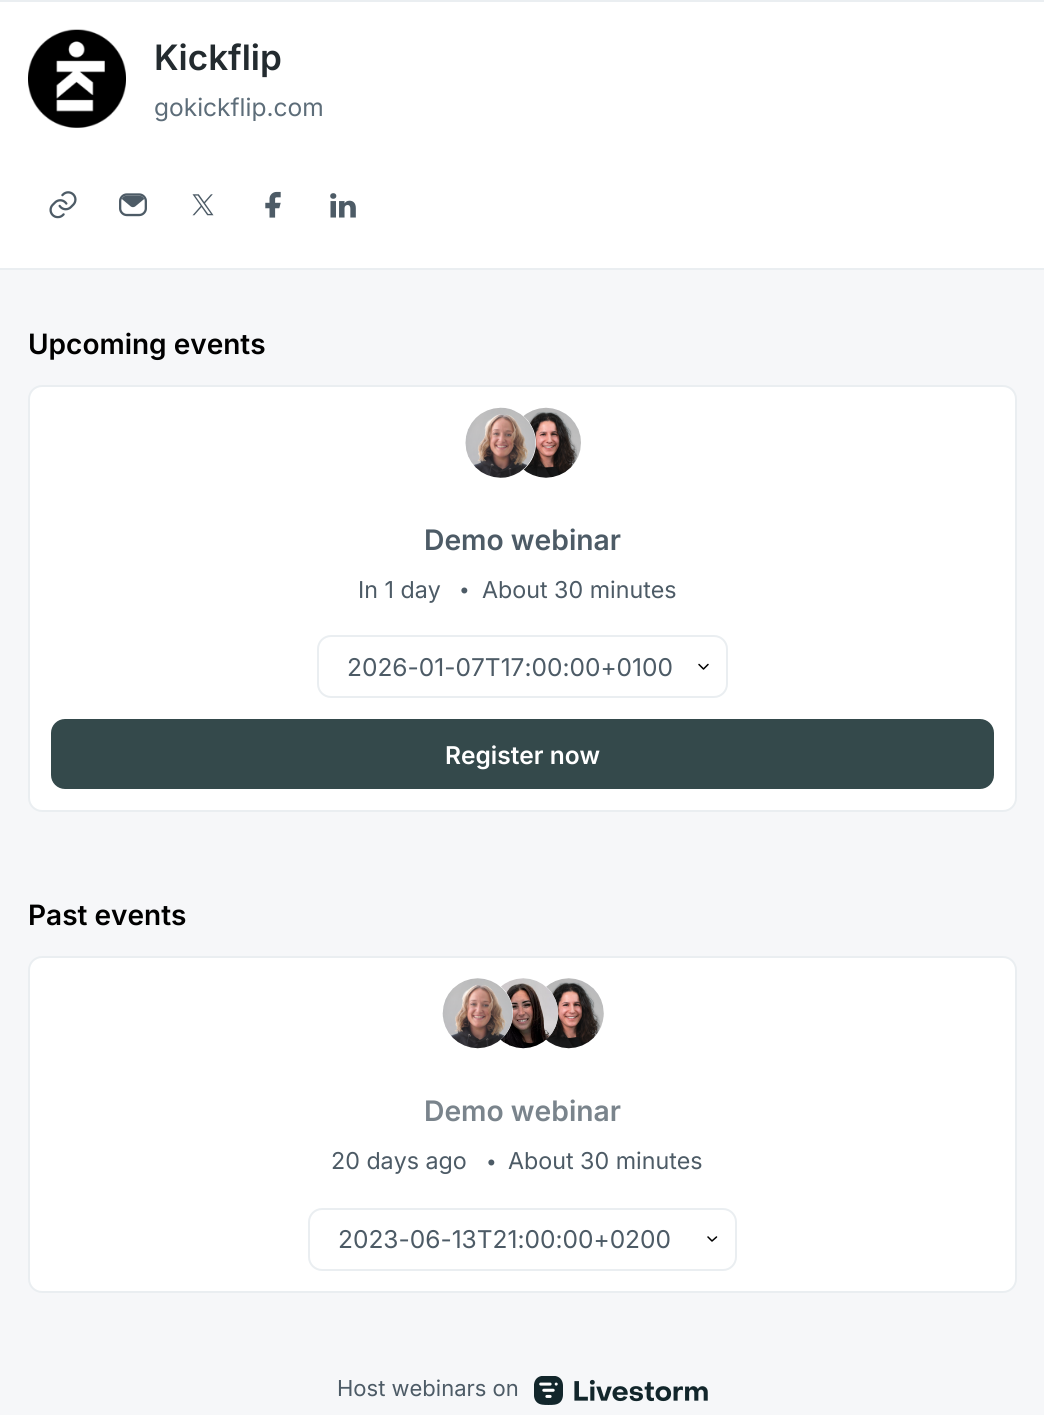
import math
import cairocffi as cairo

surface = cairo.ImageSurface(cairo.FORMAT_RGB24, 1044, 1415)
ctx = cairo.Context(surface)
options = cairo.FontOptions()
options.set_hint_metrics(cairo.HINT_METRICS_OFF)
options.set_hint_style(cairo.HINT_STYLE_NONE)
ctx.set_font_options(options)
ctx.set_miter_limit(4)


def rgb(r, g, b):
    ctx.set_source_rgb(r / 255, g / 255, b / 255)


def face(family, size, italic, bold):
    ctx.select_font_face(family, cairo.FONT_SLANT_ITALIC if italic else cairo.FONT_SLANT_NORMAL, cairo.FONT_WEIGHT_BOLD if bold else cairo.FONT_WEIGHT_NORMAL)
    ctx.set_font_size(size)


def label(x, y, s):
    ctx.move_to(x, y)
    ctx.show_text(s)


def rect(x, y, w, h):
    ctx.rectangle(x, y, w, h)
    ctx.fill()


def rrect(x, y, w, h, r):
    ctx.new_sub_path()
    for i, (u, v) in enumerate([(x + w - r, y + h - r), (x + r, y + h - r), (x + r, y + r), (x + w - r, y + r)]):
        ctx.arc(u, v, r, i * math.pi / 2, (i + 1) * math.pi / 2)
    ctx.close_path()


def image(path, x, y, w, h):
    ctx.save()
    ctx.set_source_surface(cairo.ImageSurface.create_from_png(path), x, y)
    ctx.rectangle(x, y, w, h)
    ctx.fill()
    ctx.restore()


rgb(246, 247, 249)
ctx.paint()
rgb(255, 255, 255)
rect(0, 2, 1044, 266)
rgb(234, 238, 241)
rect(0, 0, 1044, 2)
rect(0, 268, 1044, 2)
image('image0.png', 28, 29, 98, 99)
face('Inter SemiBold', 35, 0, 0)
rgb(35, 43, 47)
label(154, 70, 'Kickflip')
face('Inter', 24.5, 0, 0)
rgb(93, 109, 121)
label(154, 116, 'gokickflip.com')
image('image1.png', 49, 191, 28, 28)
image('image2.png', 119, 193, 28, 24)
image('image3.png', 192, 194, 22, 22)
image('image4.png', 265, 191, 16, 27)
image('image5.png', 330, 193, 26, 25)
face('Inter SemiBold', 28, 0, 0)
rgb(0, 0, 0)
label(28, 354, 'Upcoming events')
rgb(255, 255, 255)
rrect(29, 386, 987, 425, 13)
ctx.fill_preserve()
rgb(234, 238, 241)
ctx.stroke()
image('image7.png', 523, 407, 58, 71)
rgb(255, 255, 255)
ctx.arc(501, 443, 35, 0, 2 * math.pi)
ctx.fill()
image('image6.png', 465, 407, 71, 71)
face('Inter SemiBold', 28.25, 0, 0)
rgb(77, 91, 102)
label(424, 550, 'Demo webinar')
face('Inter', 23.25, 0, 0)
label(358, 598, 'In 1 day')
face('Inter', 19, 0, 0)
label(459, 596, '•')
face('Inter', 23.25, 0, 0)
label(482, 598, 'About 30 minutes')
ctx.new_path()
ctx.move_to(699, 664.5)
ctx.line_to(703.5, 669)
ctx.line_to(708, 664.5)
rgb(0, 0, 0)
ctx.set_line_width(1.5)
ctx.set_line_cap(cairo.LINE_CAP_ROUND)
ctx.set_line_join(cairo.LINE_JOIN_ROUND)
ctx.stroke()
rrect(318, 636, 409, 61, 13)
rgb(234, 238, 241)
ctx.set_line_width(2)
ctx.set_line_cap(cairo.LINE_CAP_BUTT)
ctx.set_line_join(cairo.LINE_JOIN_MITER)
ctx.stroke()
face('Inter', 24.5, 0, 0)
rgb(77, 91, 102)
label(347, 676, '2026-01-07T17:00:00+0100')
rgb(52, 73, 75)
rrect(51, 719, 943, 70, 14)
ctx.fill()
face('Inter SemiBold', 24.5, 0, 0)
rgb(255, 255, 255)
label(445, 764, 'Register now')
face('Inter SemiBold', 28, 0, 0)
rgb(0, 0, 0)
label(28, 925, 'Past events')
rgb(255, 255, 255)
rrect(29, 957, 987, 335, 13)
ctx.fill_preserve()
rgb(234, 238, 241)
ctx.stroke()
image('image10.png', 545, 978, 59, 71)
rgb(255, 255, 255)
ctx.arc(523, 1013, 35, 0, 2 * math.pi)
ctx.fill()
image('image9.png', 500, 978, 59, 71)
ctx.arc(478, 1013, 35, 0, 2 * math.pi)
ctx.fill()
image('image8.png', 442, 978, 71, 71)
face('Inter SemiBold', 28.25, 0, 0)
rgb(122, 132, 140)
label(424, 1121, 'Demo webinar')
face('Inter', 23.25, 0, 0)
rgb(77, 91, 102)
label(331, 1169, '20 days ago')
face('Inter', 19, 0, 0)
label(486, 1168, '•')
face('Inter', 23.25, 0, 0)
label(508, 1169, 'About 30 minutes')
ctx.new_path()
ctx.move_to(708, 1237)
ctx.line_to(712, 1241)
ctx.line_to(716.5, 1237)
rgb(0, 0, 0)
ctx.set_line_width(1.5)
ctx.set_line_cap(cairo.LINE_CAP_ROUND)
ctx.set_line_join(cairo.LINE_JOIN_ROUND)
ctx.stroke()
rrect(309, 1209, 427, 61, 13)
rgb(234, 238, 241)
ctx.set_line_width(2)
ctx.set_line_cap(cairo.LINE_CAP_BUTT)
ctx.set_line_join(cairo.LINE_JOIN_MITER)
ctx.stroke()
face('Inter', 24.5, 0, 0)
rgb(77, 91, 102)
label(338, 1248, '2023-06-13T21:00:00+0200')
face('Inter', 22, 0, 0)
label(337, 1396, 'Host webinars on')
image('image11.png', 534, 1376, 174, 29)
surface.write_to_png('render.png')
